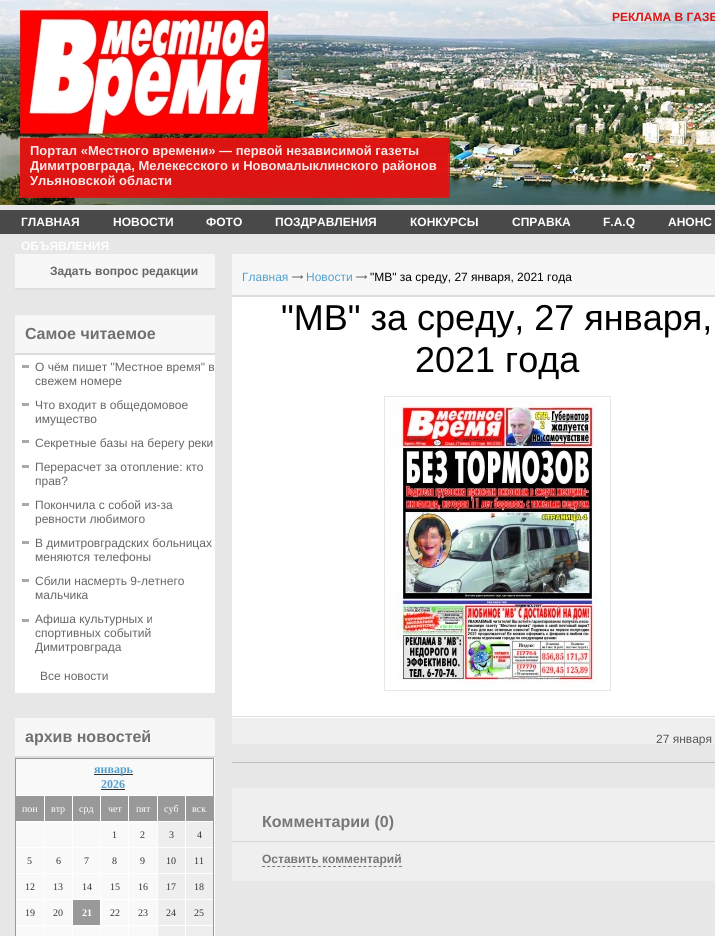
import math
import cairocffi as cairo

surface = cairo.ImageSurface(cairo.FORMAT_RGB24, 715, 936)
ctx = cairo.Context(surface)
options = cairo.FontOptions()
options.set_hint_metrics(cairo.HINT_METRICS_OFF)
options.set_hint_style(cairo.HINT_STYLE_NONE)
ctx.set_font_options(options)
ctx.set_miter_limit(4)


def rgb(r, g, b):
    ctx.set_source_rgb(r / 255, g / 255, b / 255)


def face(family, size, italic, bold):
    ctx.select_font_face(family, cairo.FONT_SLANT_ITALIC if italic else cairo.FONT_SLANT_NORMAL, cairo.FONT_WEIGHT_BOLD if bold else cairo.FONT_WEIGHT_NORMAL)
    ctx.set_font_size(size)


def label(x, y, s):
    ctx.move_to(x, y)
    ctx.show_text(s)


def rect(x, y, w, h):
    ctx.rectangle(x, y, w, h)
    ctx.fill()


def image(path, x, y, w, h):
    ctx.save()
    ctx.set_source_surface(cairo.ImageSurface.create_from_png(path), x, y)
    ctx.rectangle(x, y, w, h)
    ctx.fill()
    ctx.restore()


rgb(231, 231, 231)
ctx.paint()
image('image0.png', 0, 0, 715, 205)
face('Liberation Sans', 12, 0, 1)
rgb(220, 22, 20)
label(612, 21, 'РЕКЛАМА В ГАЗЕ')
ctx.set_source_rgba(0.863, 0.086, 0.078, 0.9)
rect(20, 138, 430, 60)
face('Liberation Sans', 13, 0, 1)
rgb(252, 232, 231)
label(30, 155, 'Портал «Местного времени» — первой независимой газеты')
label(30, 170, 'Димитровграда, Мелекесского и Новомалыклинского районов')
label(30, 185, 'Ульяновской области')
rgb(74, 73, 74)
rect(0, 210, 715, 24)
face('Liberation Sans', 12, 0, 1)
rgb(255, 255, 255)
label(21, 226, 'ГЛАВНАЯ')
label(113, 226, 'НОВОСТИ')
label(206, 226, 'ФОТО')
label(275, 226, 'ПОЗДРАВЛЕНИЯ')
label(410, 226, 'КОНКУРСЫ')
label(512, 226, 'СПРАВКА')
label(603, 226, 'F.A.Q')
label(668, 226, 'АНОНС')
label(21, 250, 'ОБЪЯВЛЕНИЯ')
rgb(247, 247, 247)
rect(15, 254, 200, 34)
rgb(221, 221, 221)
rect(15, 288, 200, 2)
rgb(102, 102, 102)
label(50, 275, 'Задать вопрос редакции')
rgb(255, 255, 255)
rect(15, 355, 200, 338)
rgb(247, 247, 247)
rect(15, 315, 200, 38)
rgb(221, 221, 221)
rect(15, 353, 200, 2)
face('Liberation Sans', 16, 0, 1)
rgb(112, 112, 112)
label(25, 339, 'Самое читаемое')
rgb(169, 169, 169)
rect(22, 365, 7, 3)
face('Liberation Sans', 12, 0, 0)
rgb(102, 102, 102)
label(35, 371, 'О чём пишет "Местное время" в')
label(35, 385, 'свежем номере')
rgb(169, 169, 169)
rect(22, 403, 7, 3)
rgb(102, 102, 102)
label(35, 409, 'Что входит в общедомовое')
label(35, 423, 'имущество')
rgb(169, 169, 169)
rect(22, 440, 7, 3)
rgb(102, 102, 102)
label(35, 447, 'Секретные базы на берегу реки')
rgb(169, 169, 169)
rect(22, 465, 7, 3)
rgb(102, 102, 102)
label(35, 471, 'Перерасчет за отопление: кто')
label(35, 485, 'прав?')
rgb(169, 169, 169)
rect(22, 503, 7, 3)
rgb(102, 102, 102)
label(35, 509, 'Покончила с собой из-за')
label(35, 523, 'ревности любимого')
rgb(169, 169, 169)
rect(22, 541, 7, 3)
rgb(102, 102, 102)
label(35, 547, 'В димитровградских больницах')
label(35, 561, 'меняются телефоны')
rgb(169, 169, 169)
rect(22, 579, 7, 3)
rgb(102, 102, 102)
label(35, 585, 'Сбили насмерть 9-летнего')
label(35, 599, 'мальчика')
rgb(169, 169, 169)
rect(22, 619, 7, 3)
rgb(102, 102, 102)
label(35, 623, 'Афиша культурных и')
label(35, 637, 'спортивных событий')
label(35, 651, 'Димитровграда')
label(40, 680, 'Все новости')
rgb(255, 255, 255)
rect(214, 758, 1, 178)
rgb(247, 247, 247)
rect(15, 718, 200, 38)
rgb(221, 221, 221)
rect(15, 756, 200, 2)
face('Liberation Sans', 16, 0, 1)
rgb(112, 112, 112)
label(25, 742, 'архив новостей')
ctx.rectangle(15.5, 758.5, 198, 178)
rgb(153, 153, 153)
ctx.set_line_width(1)
ctx.stroke()
rgb(249, 249, 249)
rect(16, 759, 197, 36)
rgb(51, 51, 51)
rect(94, 774, 39, 1)
face('Liberation Serif', 12, 0, 1)
rgb(83, 160, 204)
label(94, 773, 'январь')
label(101, 788, '2026')
rgb(51, 51, 51)
rect(101, 789, 24, 1)
rgb(153, 153, 153)
rect(16, 796, 28, 25)
rgb(255, 255, 255)
rect(16, 795, 197, 1)
rect(44, 795, 1, 26)
face('Liberation Serif', 10, 0, 0)
label(22, 812, 'пон')
rgb(153, 153, 153)
rect(45, 796, 27, 25)
rgb(255, 255, 255)
rect(72, 795, 1, 26)
label(51, 812, 'втр')
rgb(153, 153, 153)
rect(73, 796, 27, 25)
rgb(255, 255, 255)
rect(100, 795, 1, 26)
label(79, 812, 'срд')
rgb(153, 153, 153)
rect(101, 796, 27, 25)
rgb(255, 255, 255)
rect(128, 795, 1, 26)
label(108, 812, 'чет')
rgb(153, 153, 153)
rect(129, 796, 28, 25)
rgb(255, 255, 255)
rect(157, 795, 1, 26)
label(136, 812, 'пят')
rgb(153, 153, 153)
rect(158, 796, 27, 25)
rgb(255, 255, 255)
rect(185, 795, 1, 26)
label(164, 812, 'суб')
rgb(153, 153, 153)
rect(186, 796, 27, 25)
rgb(255, 255, 255)
label(192, 812, 'вск')
rgb(249, 249, 249)
rect(16, 822, 28, 25)
rgb(255, 255, 255)
rect(16, 821, 197, 1)
rect(44, 821, 1, 26)
rgb(249, 249, 249)
rect(45, 822, 27, 25)
rgb(255, 255, 255)
rect(72, 821, 1, 26)
rgb(249, 249, 249)
rect(73, 822, 27, 25)
rgb(255, 255, 255)
rect(100, 821, 1, 26)
rgb(249, 249, 249)
rect(101, 822, 27, 25)
rgb(255, 255, 255)
rect(128, 821, 1, 26)
rgb(51, 51, 51)
label(112, 838, '1')
rgb(249, 249, 249)
rect(129, 822, 28, 25)
rgb(255, 255, 255)
rect(157, 821, 1, 26)
rgb(51, 51, 51)
label(140, 838, '2')
rgb(238, 238, 238)
rect(158, 822, 27, 25)
rgb(255, 255, 255)
rect(185, 821, 1, 26)
rgb(51, 51, 51)
label(169, 838, '3')
rgb(238, 238, 238)
rect(186, 822, 27, 25)
rgb(51, 51, 51)
label(197, 838, '4')
rgb(249, 249, 249)
rect(16, 848, 28, 25)
rgb(255, 255, 255)
rect(16, 847, 197, 1)
rect(44, 847, 1, 26)
rgb(51, 51, 51)
label(27, 864, '5')
rgb(249, 249, 249)
rect(45, 848, 27, 25)
rgb(255, 255, 255)
rect(72, 847, 1, 26)
rgb(51, 51, 51)
label(56, 864, '6')
rgb(249, 249, 249)
rect(73, 848, 27, 25)
rgb(255, 255, 255)
rect(100, 847, 1, 26)
rgb(51, 51, 51)
label(84, 864, '7')
rgb(249, 249, 249)
rect(101, 848, 27, 25)
rgb(255, 255, 255)
rect(128, 847, 1, 26)
rgb(51, 51, 51)
label(112, 864, '8')
rgb(249, 249, 249)
rect(129, 848, 28, 25)
rgb(255, 255, 255)
rect(157, 847, 1, 26)
rgb(51, 51, 51)
label(140, 864, '9')
rgb(238, 238, 238)
rect(158, 848, 27, 25)
rgb(255, 255, 255)
rect(185, 847, 1, 26)
rgb(51, 51, 51)
label(166, 864, '10')
rgb(238, 238, 238)
rect(186, 848, 27, 25)
rgb(51, 51, 51)
label(194, 864, '11')
rgb(249, 249, 249)
rect(16, 874, 28, 25)
rgb(255, 255, 255)
rect(16, 873, 197, 1)
rect(44, 873, 1, 26)
rgb(51, 51, 51)
label(25, 890, '12')
rgb(249, 249, 249)
rect(45, 874, 27, 25)
rgb(255, 255, 255)
rect(72, 873, 1, 26)
rgb(51, 51, 51)
label(53, 890, '13')
rgb(249, 249, 249)
rect(73, 874, 27, 25)
rgb(255, 255, 255)
rect(100, 873, 1, 26)
rgb(51, 51, 51)
label(82, 890, '14')
rgb(249, 249, 249)
rect(101, 874, 27, 25)
rgb(255, 255, 255)
rect(128, 873, 1, 26)
rgb(51, 51, 51)
label(110, 890, '15')
rgb(249, 249, 249)
rect(129, 874, 28, 25)
rgb(255, 255, 255)
rect(157, 873, 1, 26)
rgb(51, 51, 51)
label(138, 890, '16')
rgb(238, 238, 238)
rect(158, 874, 27, 25)
rgb(255, 255, 255)
rect(185, 873, 1, 26)
rgb(51, 51, 51)
label(166, 890, '17')
rgb(238, 238, 238)
rect(186, 874, 27, 25)
rgb(51, 51, 51)
label(194, 890, '18')
rgb(249, 249, 249)
rect(16, 900, 28, 25)
rgb(255, 255, 255)
rect(16, 899, 197, 1)
rect(44, 899, 1, 26)
rgb(51, 51, 51)
label(25, 916, '19')
rgb(249, 249, 249)
rect(45, 900, 27, 25)
rgb(255, 255, 255)
rect(72, 899, 1, 26)
rgb(51, 51, 51)
label(53, 916, '20')
rgb(153, 153, 153)
rect(73, 900, 27, 25)
rgb(255, 255, 255)
rect(100, 899, 1, 26)
face('Liberation Serif', 10, 0, 1)
label(82, 916, '21')
rgb(249, 249, 249)
rect(101, 900, 27, 25)
rgb(255, 255, 255)
rect(128, 899, 1, 26)
face('Liberation Serif', 10, 0, 0)
rgb(51, 51, 51)
label(110, 916, '22')
rgb(249, 249, 249)
rect(129, 900, 28, 25)
rgb(255, 255, 255)
rect(157, 899, 1, 26)
rgb(51, 51, 51)
label(138, 916, '23')
rgb(238, 238, 238)
rect(158, 900, 27, 25)
rgb(255, 255, 255)
rect(185, 899, 1, 26)
rgb(51, 51, 51)
label(166, 916, '24')
rgb(238, 238, 238)
rect(186, 900, 27, 25)
rgb(51, 51, 51)
label(194, 916, '25')
rgb(249, 249, 249)
rect(16, 926, 28, 10)
rgb(255, 255, 255)
rect(16, 925, 197, 1)
rect(44, 925, 1, 11)
rgb(249, 249, 249)
rect(45, 926, 27, 10)
rgb(255, 255, 255)
rect(72, 925, 1, 11)
rgb(249, 249, 249)
rect(73, 926, 27, 10)
rgb(255, 255, 255)
rect(100, 925, 1, 11)
rgb(249, 249, 249)
rect(101, 926, 27, 10)
rgb(255, 255, 255)
rect(128, 925, 1, 11)
rgb(249, 249, 249)
rect(129, 926, 28, 10)
rgb(255, 255, 255)
rect(157, 925, 1, 11)
rgb(238, 238, 238)
rect(158, 926, 27, 10)
rgb(255, 255, 255)
rect(185, 925, 1, 11)
rgb(238, 238, 238)
rect(186, 926, 27, 10)
rgb(247, 247, 247)
rect(232, 254, 483, 41)
rgb(221, 221, 221)
rect(232, 295, 483, 2)
face('Liberation Sans', 12, 0, 0)
rgb(83, 160, 204)
label(242, 281, 'Главная')
image('image1.png', 292, 275, 11, 4)
label(306, 281, 'Новости')
image('image1.png', 356, 275, 11, 4)
rgb(0, 0, 0)
label(370, 281, '"МВ" за среду, 27 января, 2021 года')
rgb(255, 255, 255)
rect(232, 297, 483, 419)
face('Liberation Sans', 36, 0, 0)
rgb(0, 0, 0)
label(281, 330, '"МВ" за среду, 27 января,')
label(415, 372, '2021 года')
ctx.rectangle(384.5, 396.5, 226, 294)
rgb(231, 231, 230)
ctx.stroke()
image('image2.png', 389, 401, 208, 285)
image('image3.png', 232, 716, 483, 47)
face('Liberation Sans', 12, 0, 0)
rgb(86, 86, 86)
label(656, 743, '27 января')
rgb(239, 239, 239)
rect(232, 788, 483, 93)
face('Liberation Sans', 16, 0, 1)
rgb(119, 119, 119)
label(262, 827, 'Комментарии (0)')
rgb(215, 215, 215)
rect(232, 841, 483, 1)
face('Liberation Sans', 12, 0, 1)
rgb(119, 119, 119)
label(262, 863, 'Оставить комментарий')
ctx.new_path()
ctx.move_to(262, 866.5)
ctx.line_to(402, 866.5)
rgb(120, 120, 120)
ctx.set_dash([3, 2.07])
ctx.stroke()
surface.write_to_png('render.png')
